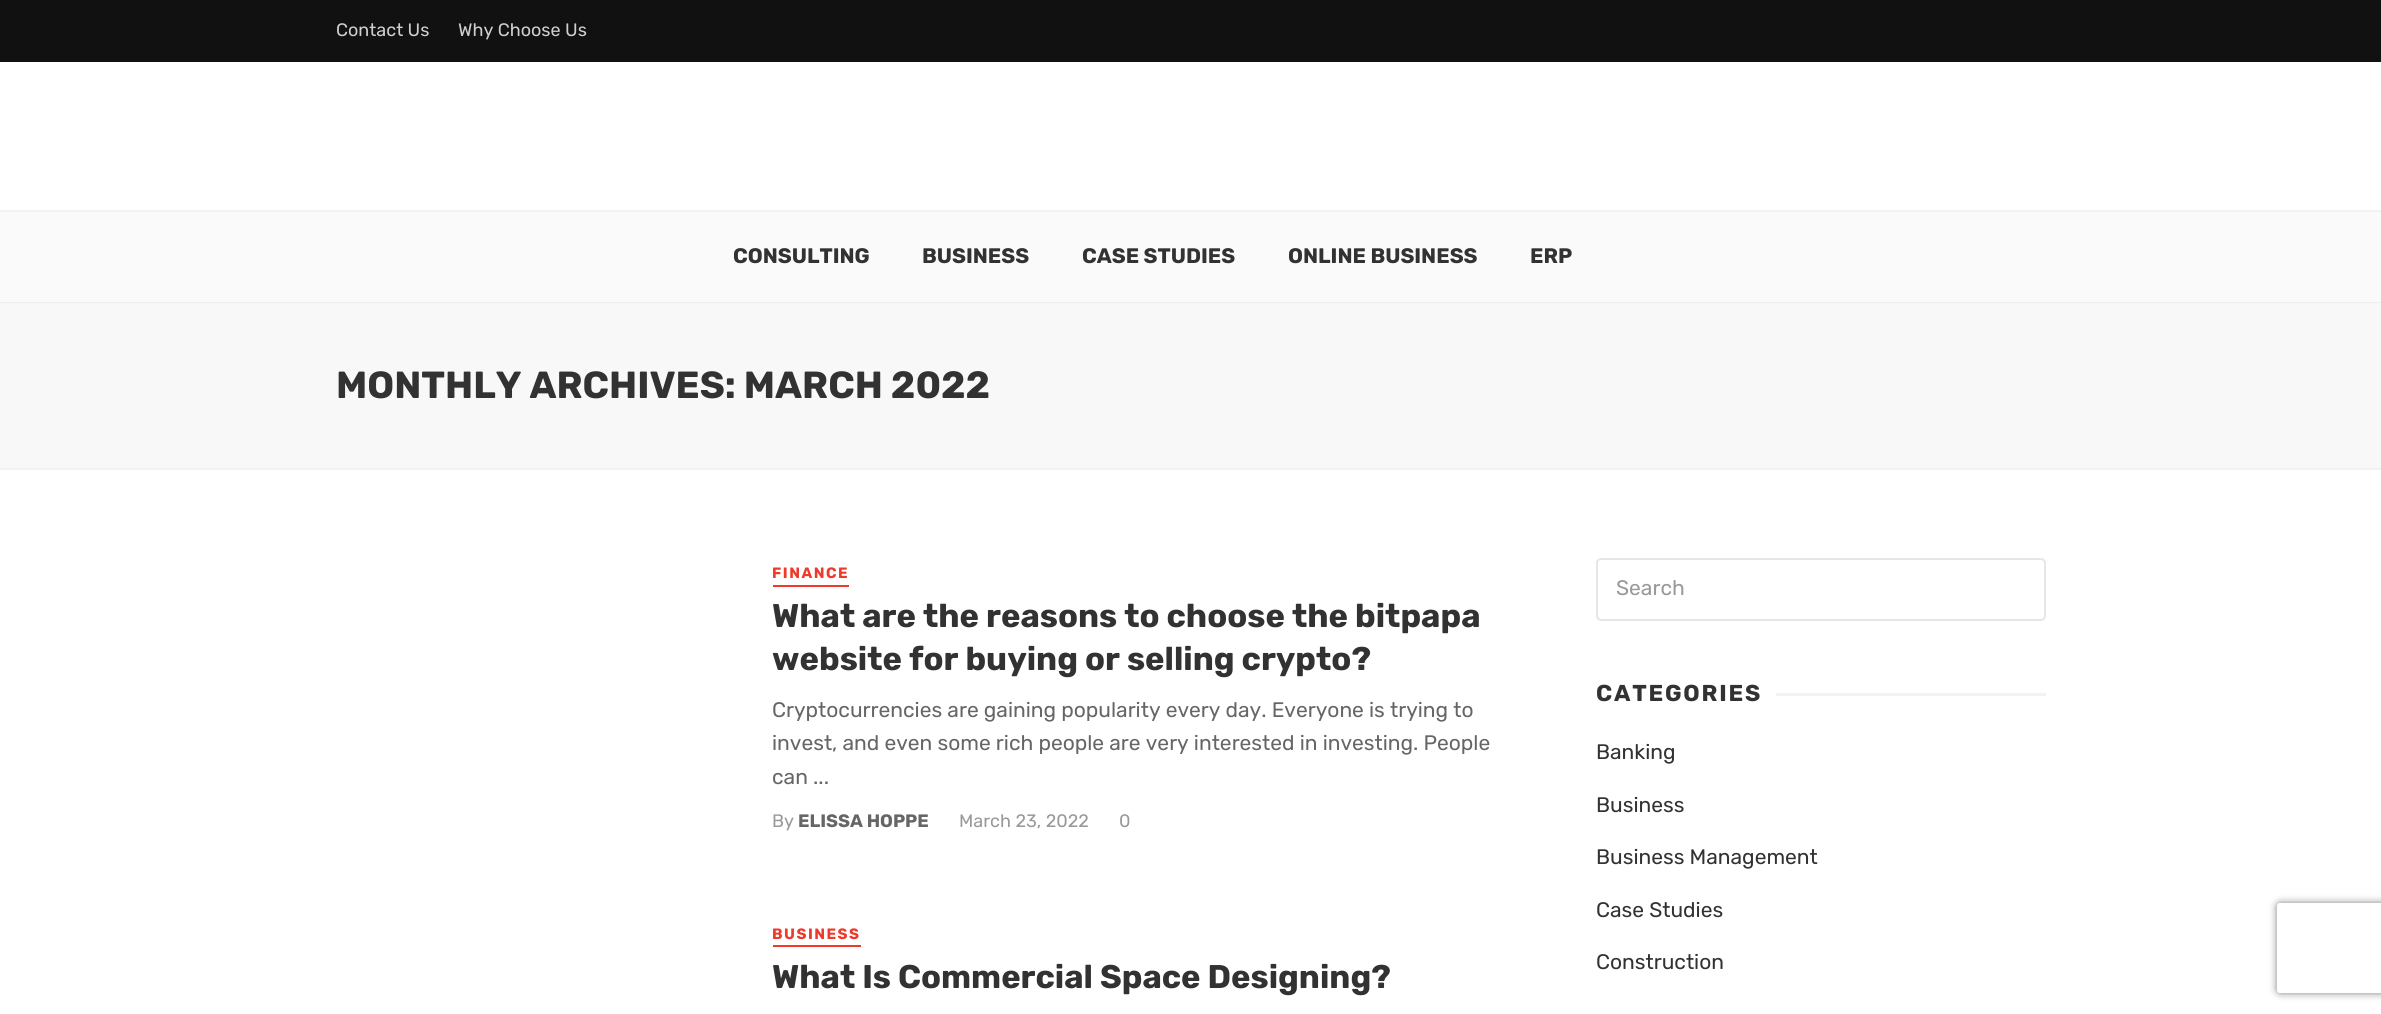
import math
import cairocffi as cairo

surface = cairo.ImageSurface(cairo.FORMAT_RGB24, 2381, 1014)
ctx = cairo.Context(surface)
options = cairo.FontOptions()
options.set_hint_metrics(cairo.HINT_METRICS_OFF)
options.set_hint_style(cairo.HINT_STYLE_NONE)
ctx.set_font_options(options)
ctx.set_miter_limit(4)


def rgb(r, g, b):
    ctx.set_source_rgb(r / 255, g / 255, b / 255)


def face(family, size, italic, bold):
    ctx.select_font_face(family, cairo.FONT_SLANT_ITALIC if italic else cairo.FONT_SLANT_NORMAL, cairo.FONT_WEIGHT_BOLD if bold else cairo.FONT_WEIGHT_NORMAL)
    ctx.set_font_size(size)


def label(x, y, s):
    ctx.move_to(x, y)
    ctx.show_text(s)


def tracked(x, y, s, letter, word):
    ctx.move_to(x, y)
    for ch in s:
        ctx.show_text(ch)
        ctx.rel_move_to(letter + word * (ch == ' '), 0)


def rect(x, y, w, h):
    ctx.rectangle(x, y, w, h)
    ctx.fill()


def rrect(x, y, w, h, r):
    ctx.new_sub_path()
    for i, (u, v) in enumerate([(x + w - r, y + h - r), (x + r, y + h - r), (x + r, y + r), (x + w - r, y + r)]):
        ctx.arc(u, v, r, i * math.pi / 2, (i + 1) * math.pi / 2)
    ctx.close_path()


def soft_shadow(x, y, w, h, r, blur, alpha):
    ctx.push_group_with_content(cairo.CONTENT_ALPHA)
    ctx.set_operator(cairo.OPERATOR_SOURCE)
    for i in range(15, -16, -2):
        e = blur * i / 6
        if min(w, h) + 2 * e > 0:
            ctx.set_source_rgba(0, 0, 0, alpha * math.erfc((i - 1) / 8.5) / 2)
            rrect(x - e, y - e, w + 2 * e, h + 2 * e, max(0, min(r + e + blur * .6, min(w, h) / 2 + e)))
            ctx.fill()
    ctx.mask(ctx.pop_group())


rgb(255, 255, 255)
ctx.paint()
ctx.rectangle(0, 301, 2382, 168)
rgb(242, 242, 242)
ctx.stroke()
rgb(238, 238, 238)
rect(0, 302, 2381, 1)
rgb(17, 17, 17)
rect(0, 0, 2381, 62)
face('Rubik', 18, 0, 0)
rgb(207, 207, 207)
label(336, 36, 'Contact Us')
label(458, 36, 'Why Choose Us')
rgb(242, 242, 242)
rect(0, 210, 2381, 2)
rgb(250, 250, 250)
rect(0, 212, 2381, 90)
face('Rubik', 21, 0, 1)
rgb(50, 50, 50)
label(733, 263, 'CONSULTING')
label(922, 263, 'BUSINESS')
label(1082, 263, 'CASE STUDIES')
label(1288, 263, 'ONLINE BUSINESS')
label(1530, 263, 'ERP')
rgb(248, 248, 248)
rect(0, 303, 2381, 165)
face('Rubik', 37.75, 0, 1)
rgb(50, 50, 50)
label(336, 398, 'MONTHLY ARCHIVES: MARCH 2022')
rgb(239, 58, 43)
rect(773, 585, 76, 2)
face('Rubik', 15, 0, 1)
tracked(772, 578, 'FINANCE', 1.5, 0)
face('Rubik', 32.8, 0, 1)
rgb(50, 50, 50)
label(772, 627, 'What are the reasons to choose the bitpapa')
label(772, 670, 'website for buying or selling crypto?')
face('Rubik', 21, 0, 0)
rgb(102, 102, 102)
label(772, 717, 'Cryptocurrencies are gaining popularity every day. Everyone is trying to')
label(772, 750, 'invest, and even some rich people are very interested in investing. People')
label(772, 784, 'can ...')
face('Rubik', 18, 0, 0)
rgb(153, 153, 153)
label(772, 827, 'By')
face('Rubik', 18, 0, 1)
rgb(102, 102, 102)
label(798, 827, 'ELISSA HOPPE')
face('Rubik', 18, 0, 0)
rgb(153, 153, 153)
label(959, 827, 'March 23, 2022')
label(1119, 827, '0')
rgb(239, 58, 43)
rect(773, 945, 88, 2)
face('Rubik', 15, 0, 1)
tracked(772, 939, 'BUSINESS', 1.5, 0)
face('Rubik', 32.8, 0, 1)
rgb(50, 50, 50)
label(772, 988, 'What Is Commercial Space Designing?')
rrect(1597, 559, 448, 61, 4)
rgb(230, 230, 230)
ctx.stroke()
face('Rubik', 21, 0, 0)
rgb(153, 153, 153)
label(1616, 595, 'Search')
face('Rubik', 23, 0, 1)
rgb(50, 50, 50)
tracked(1596, 701, 'CATEGORIES', 1.8, 0)
rgb(242, 242, 242)
rect(1776, 693, 270, 3)
face('Rubik', 21, 0, 0)
rgb(50, 50, 50)
label(1596, 759, 'Banking')
label(1596, 812, 'Business')
label(1596, 864, 'Business Management')
label(1596, 917, 'Case Studies')
label(1596, 969, 'Construction')
ctx.save()
ctx.set_fill_rule(cairo.FILL_RULE_EVEN_ODD)
ctx.new_path()
ctx.move_to(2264, 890)
ctx.line_to(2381, 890)
ctx.line_to(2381, 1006)
ctx.line_to(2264, 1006)
ctx.close_path()
ctx.move_to(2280, 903)
ctx.line_to(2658, 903)
ctx.curve_to(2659.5, 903, 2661, 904.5, 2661, 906)
ctx.line_to(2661, 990)
ctx.curve_to(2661, 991.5, 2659.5, 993, 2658, 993)
ctx.line_to(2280, 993)
ctx.curve_to(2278.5, 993, 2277, 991.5, 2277, 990)
ctx.line_to(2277, 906)
ctx.curve_to(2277, 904.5, 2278.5, 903, 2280, 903)
ctx.close_path()
ctx.clip()
rgb(128, 128, 128)
soft_shadow(2277, 903, 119, 90, 3, 4, 1)
ctx.restore()
surface.write_to_png('render.png')
